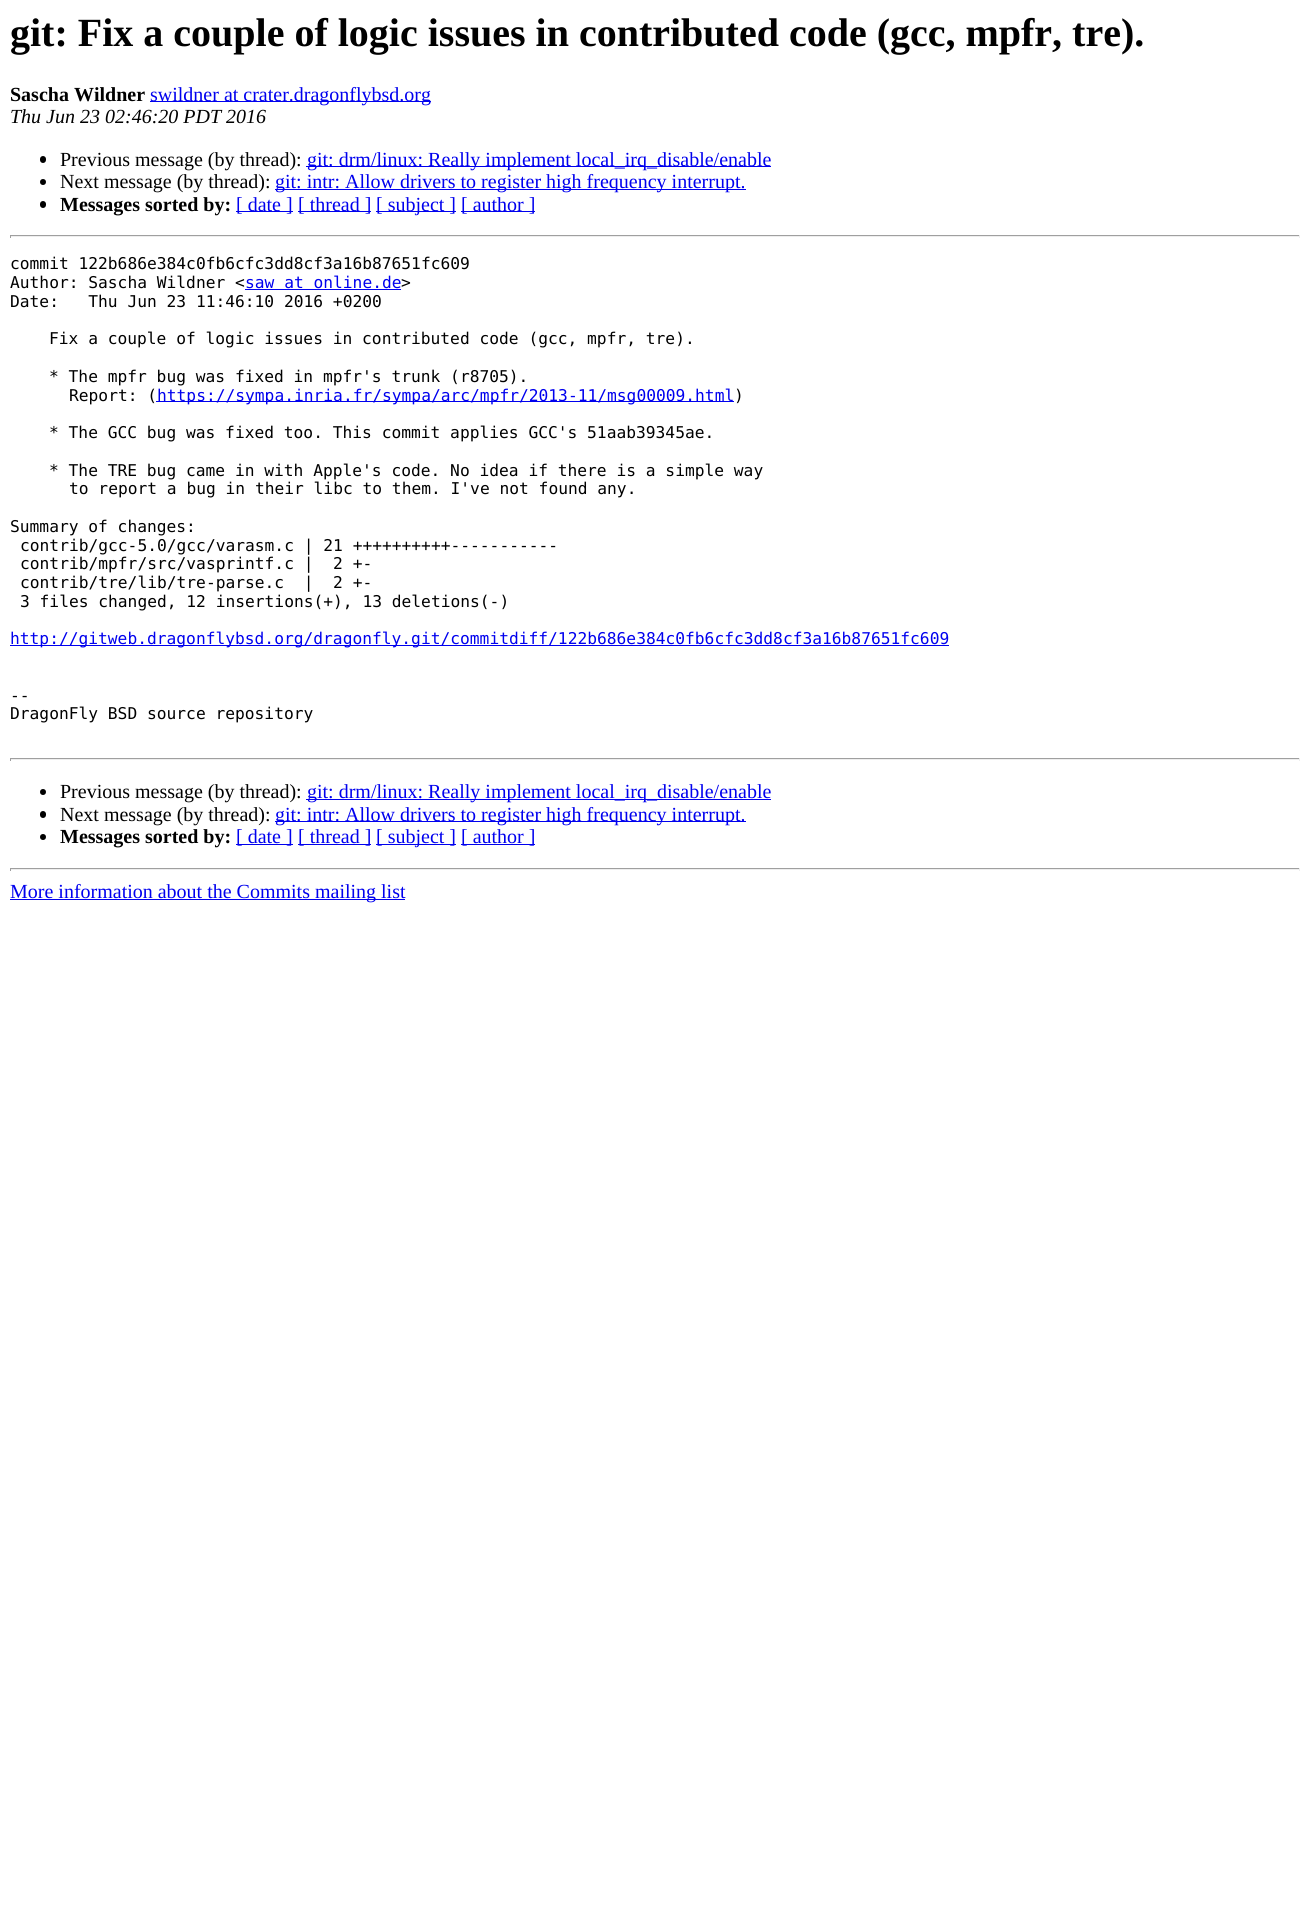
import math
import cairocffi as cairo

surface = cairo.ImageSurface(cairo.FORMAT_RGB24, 1309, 1925)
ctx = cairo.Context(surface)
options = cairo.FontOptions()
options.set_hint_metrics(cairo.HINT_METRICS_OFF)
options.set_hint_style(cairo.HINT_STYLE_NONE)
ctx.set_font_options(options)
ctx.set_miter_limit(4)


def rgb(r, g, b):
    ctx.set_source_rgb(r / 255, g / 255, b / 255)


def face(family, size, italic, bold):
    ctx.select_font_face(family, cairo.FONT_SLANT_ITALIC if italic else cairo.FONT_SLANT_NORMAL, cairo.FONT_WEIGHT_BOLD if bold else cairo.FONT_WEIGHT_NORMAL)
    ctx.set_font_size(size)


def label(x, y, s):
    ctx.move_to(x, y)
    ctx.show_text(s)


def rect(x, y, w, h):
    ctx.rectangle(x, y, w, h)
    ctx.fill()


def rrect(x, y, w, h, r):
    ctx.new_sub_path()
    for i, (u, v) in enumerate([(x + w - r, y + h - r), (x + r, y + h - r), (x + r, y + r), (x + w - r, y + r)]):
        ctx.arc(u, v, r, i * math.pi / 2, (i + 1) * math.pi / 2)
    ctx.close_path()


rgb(255, 255, 255)
ctx.paint()
face('Liberation Serif', 40, 0, 1)
rgb(0, 0, 0)
label(10, 46, 'git: Fix a couple of logic issues in contributed code (gcc, mpfr, tre).')
face('Liberation Serif', 20, 0, 1)
label(10, 101, 'Sascha Wildner')
rgb(0, 0, 238)
rect(150, 101, 281, 1)
face('Liberation Serif', 20, 0, 0)
label(150, 101, 'swildner at crater.dragonflybsd.org')
face('Liberation Serif', 20, 1, 0)
rgb(0, 0, 0)
label(10, 123, 'Thu Jun 23 02:46:20 PDT 2016')
rrect(40, 156, 6, 7, 3)
ctx.fill()
face('Liberation Serif', 20, 0, 0)
label(60, 166, 'Previous message (by thread):')
rgb(0, 0, 238)
rect(306, 166, 465, 1)
label(307, 166, 'git: drm/linux: Really implement local_irq_disable/enable')
rgb(0, 0, 0)
ctx.new_path()
ctx.arc(43, 182, 3, 0, 2 * math.pi)
ctx.fill()
label(60, 188, 'Next message (by thread):')
rgb(0, 0, 238)
rect(275, 189, 471, 1)
label(275, 188, 'git: intr: Allow drivers to register high frequency interrupt.')
rgb(0, 0, 0)
rrect(40, 201, 6, 7, 3)
ctx.fill()
face('Liberation Serif', 20, 0, 1)
label(60, 211, 'Messages sorted by:')
rgb(0, 0, 238)
rect(236, 211, 57, 1)
face('Liberation Serif', 20, 0, 0)
label(236, 211, '[ date ]')
rect(298, 211, 73, 1)
label(298, 211, '[ thread ]')
rect(376, 211, 80, 1)
label(376, 211, '[ subject ]')
rect(461, 211, 74, 1)
label(461, 211, '[ author ]')
rgb(159, 159, 159)
rect(10, 235, 1290, 1)
rgb(238, 238, 238)
rect(1299, 235, 1, 3)
rect(10, 236, 1290, 1)
rgb(159, 159, 159)
rect(10, 235, 1, 3)
face('DejaVu Sans Mono', 16.25, 0, 0)
rgb(0, 0, 0)
label(10, 269, 'commit 122b686e384c0fb6cfc3dd8cf3a16b87651fc609')
label(10, 288, 'Author: Sascha Wildner <')
rgb(0, 0, 238)
label(245, 288, 'saw at online.de')
rect(245, 289, 156, 1)
rgb(0, 0, 0)
label(401, 288, '>')
label(10, 307, 'Date:   Thu Jun 23 11:46:10 2016 +0200')
label(49, 344, 'Fix a couple of logic issues in contributed code (gcc, mpfr, tre).')
label(49, 382, '* The mpfr bug was fixed in mpfr\'s trunk (r8705).')
label(69, 401, 'Report: (')
rgb(0, 0, 238)
rect(156, 401, 578, 1)
label(157, 401, 'https://sympa.inria.fr/sympa/arc/mpfr/2013-11/msg00009.html')
rgb(0, 0, 0)
label(734, 401, ')')
label(49, 438, '* The GCC bug was fixed too. This commit applies GCC\'s 51aab39345ae.')
label(49, 476, '* The TRE bug came in with Apple\'s code. No idea if there is a simple way')
label(69, 494, 'to report a bug in their libc to them. I\'ve not found any.')
label(10, 532, 'Summary of changes:')
label(20, 551, 'contrib/gcc-5.0/gcc/varasm.c | 21 ++++++++++-----------')
label(20, 569, 'contrib/mpfr/src/vasprintf.c |  2 +-')
label(20, 588, 'contrib/tre/lib/tre-parse.c  |  2 +-')
label(20, 607, '3 files changed, 12 insertions(+), 13 deletions(-)')
rgb(0, 0, 238)
rect(10, 645, 939, 1)
label(10, 644, 'http://gitweb.dragonflybsd.org/dragonfly.git/commitdiff/122b686e384c0fb6cfc3dd8cf3a16b87651fc609')
rgb(0, 0, 0)
label(10, 701, '--')
label(10, 719, 'DragonFly BSD source repository')
rgb(159, 159, 159)
rect(10, 758, 1290, 1)
rgb(238, 238, 238)
rect(1299, 758, 1, 3)
rect(10, 759, 1290, 1)
rgb(159, 159, 159)
rect(10, 758, 1, 3)
rgb(0, 0, 0)
ctx.new_path()
ctx.arc(43, 792, 3, 0, 2 * math.pi)
ctx.fill()
face('Liberation Serif', 20, 0, 0)
label(60, 798, 'Previous message (by thread):')
rgb(0, 0, 238)
rect(306, 799, 465, 1)
label(307, 798, 'git: drm/linux: Really implement local_irq_disable/enable')
rgb(0, 0, 0)
rrect(40, 811, 6, 7, 3)
ctx.fill()
label(60, 821, 'Next message (by thread):')
rgb(0, 0, 238)
rect(275, 821, 471, 1)
label(275, 821, 'git: intr: Allow drivers to register high frequency interrupt.')
rgb(0, 0, 0)
ctx.new_path()
ctx.arc(43, 837, 3, 0, 2 * math.pi)
ctx.fill()
face('Liberation Serif', 20, 0, 1)
label(60, 843, 'Messages sorted by:')
rgb(0, 0, 238)
rect(236, 844, 57, 1)
face('Liberation Serif', 20, 0, 0)
label(236, 843, '[ date ]')
rect(298, 844, 73, 1)
label(298, 843, '[ thread ]')
rect(376, 844, 80, 1)
label(376, 843, '[ subject ]')
rect(461, 844, 74, 1)
label(461, 843, '[ author ]')
rgb(159, 159, 159)
rect(10, 868, 1290, 1)
rgb(238, 238, 238)
rect(1299, 868, 1, 3)
rect(10, 869, 1290, 1)
rgb(159, 159, 159)
rect(10, 868, 1, 3)
rgb(0, 0, 238)
rect(10, 899, 395, 1)
label(10, 898, 'More information about the Commits mailing list')
surface.write_to_png('render.png')
